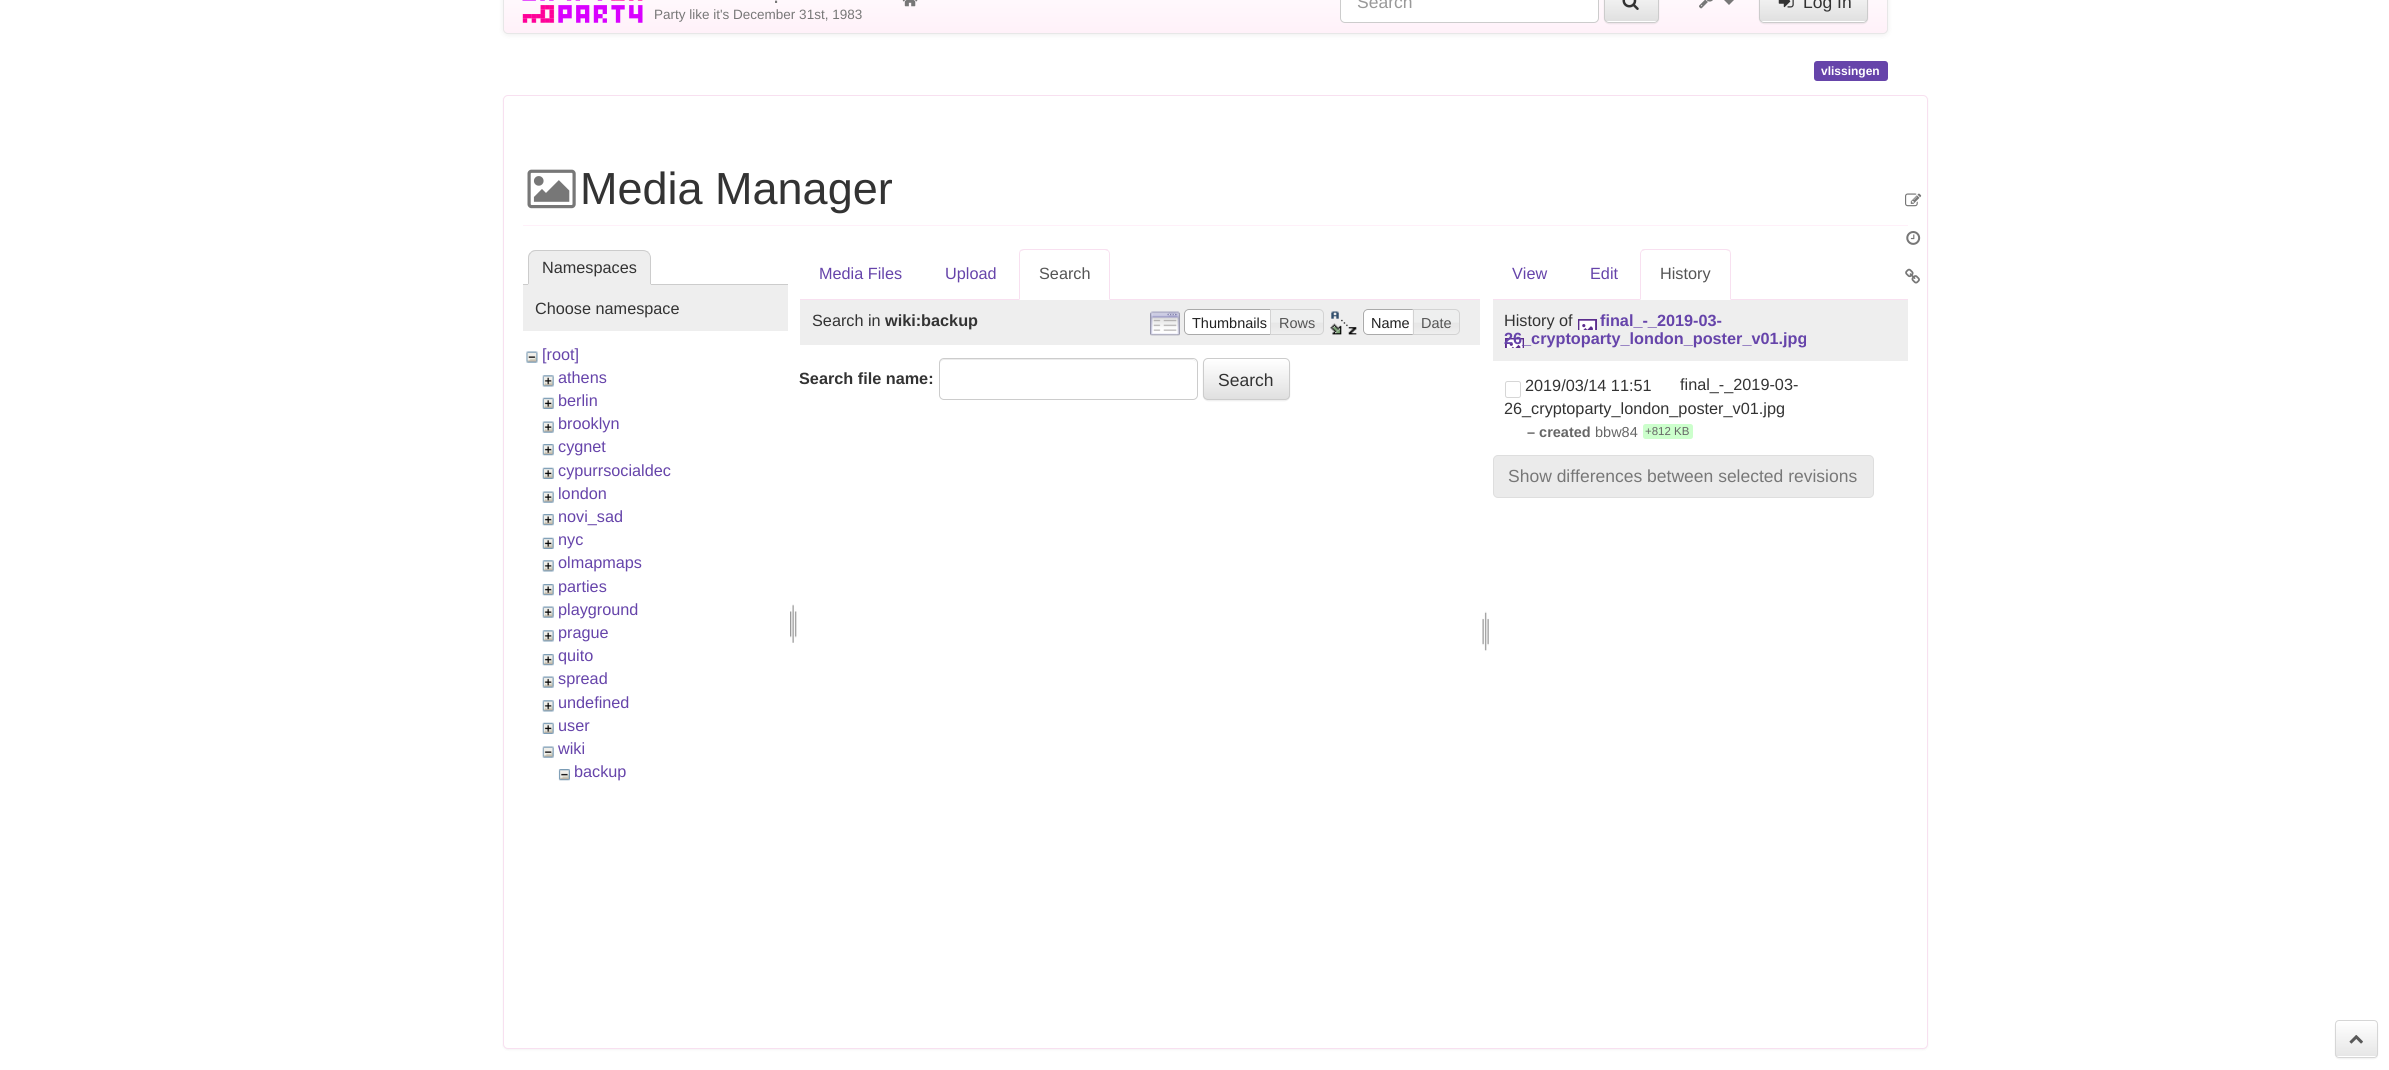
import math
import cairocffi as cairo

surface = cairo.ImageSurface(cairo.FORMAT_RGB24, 2389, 1070)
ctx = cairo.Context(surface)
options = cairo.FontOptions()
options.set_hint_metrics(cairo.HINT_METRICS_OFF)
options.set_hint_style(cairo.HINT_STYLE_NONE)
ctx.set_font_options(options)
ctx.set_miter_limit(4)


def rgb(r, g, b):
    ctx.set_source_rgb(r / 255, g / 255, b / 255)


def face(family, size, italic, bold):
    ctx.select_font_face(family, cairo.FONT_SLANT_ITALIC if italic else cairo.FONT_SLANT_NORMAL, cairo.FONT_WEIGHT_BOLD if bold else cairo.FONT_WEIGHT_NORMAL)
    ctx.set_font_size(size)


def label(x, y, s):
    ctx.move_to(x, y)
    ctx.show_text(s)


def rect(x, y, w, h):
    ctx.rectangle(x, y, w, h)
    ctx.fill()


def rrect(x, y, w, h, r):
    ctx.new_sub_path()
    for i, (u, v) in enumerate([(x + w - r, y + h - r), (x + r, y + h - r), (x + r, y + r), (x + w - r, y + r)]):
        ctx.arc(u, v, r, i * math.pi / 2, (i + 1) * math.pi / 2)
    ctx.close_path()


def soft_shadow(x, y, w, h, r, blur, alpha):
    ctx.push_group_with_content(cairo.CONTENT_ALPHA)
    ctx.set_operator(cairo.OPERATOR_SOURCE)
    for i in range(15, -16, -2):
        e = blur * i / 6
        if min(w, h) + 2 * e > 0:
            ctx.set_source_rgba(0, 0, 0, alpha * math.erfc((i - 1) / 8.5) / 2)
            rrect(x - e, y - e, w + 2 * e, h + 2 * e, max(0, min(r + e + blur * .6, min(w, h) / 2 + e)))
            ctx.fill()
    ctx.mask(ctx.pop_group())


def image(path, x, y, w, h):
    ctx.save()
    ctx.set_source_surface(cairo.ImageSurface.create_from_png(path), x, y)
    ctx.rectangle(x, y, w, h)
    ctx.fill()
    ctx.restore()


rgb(255, 255, 255)
ctx.paint()
rgb(0, 0, 0)
soft_shadow(503, -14, 1385, 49, 5, 3, 0.07)
ctx.save()
rrect(503, -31, 1385, 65, 5)
ctx.clip()
gradient = cairo.LinearGradient(1195, -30, 1195, 33)
gradient.add_color_stop_rgba(0, 1, 1, 1, 1)
gradient.add_color_stop_rgba(1, 1, 0.945, 0.976, 1)
ctx.set_source(gradient)
rect(503, 0, 1385, 33)
ctx.restore()
rrect(503.5, -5.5, 1384, 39, 4.5)
rgb(231, 231, 231)
ctx.set_line_width(1)
ctx.stroke()
image('image0.png', 522, 0, 121, 23)
face('Liberation Sans', 22, 0, 0)
rgb(119, 119, 119)
label(773, 3, '.')
face('Liberation Sans', 13.5, 0, 0)
label(654, 19, 'Party like it\'s December 31st, 1983')
image('image1.png', 902, 0, 16, 7)
rgb(255, 255, 255)
rrect(1340.5, -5.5, 258, 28, 4.5)
ctx.fill_preserve()
rgb(204, 204, 204)
ctx.stroke()
face('Liberation Sans', 17.5, 0, 0)
rgb(153, 153, 153)
label(1357, 8, 'Search')
rgb(0, 0, 0)
soft_shadow(1604, -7, 55, 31, 5, 0.5, 0.07)
rgb(255, 255, 255)
rrect(1604, -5, 55, 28, 5)
ctx.fill()
ctx.save()
rrect(1604, -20, 55, 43, 5)
ctx.clip()
gradient = cairo.LinearGradient(1631, -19, 1631, 21)
gradient.add_color_stop_rgba(0, 1, 1, 1, 1)
gradient.add_color_stop_rgba(1, 0.878, 0.878, 0.878, 1)
ctx.set_source(gradient)
rect(1604, 0, 55, 21)
ctx.restore()
rrect(1604.5, -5.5, 54, 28, 4.5)
rgb(204, 204, 204)
ctx.stroke()
image('image2.png', 1622, 0, 17, 10)
image('image3.png', 1699, 0, 14, 9)
rgb(119, 119, 119)
ctx.new_path()
ctx.move_to(1724, 0)
ctx.line_to(1734, 0)
ctx.line_to(1729, 5)
ctx.close_path()
ctx.fill()
rgb(0, 0, 0)
soft_shadow(1759, -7, 109, 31, 5, 0.5, 0.07)
rgb(255, 255, 255)
rrect(1759, -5, 109, 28, 5)
ctx.fill()
ctx.save()
rrect(1759, -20, 109, 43, 5)
ctx.clip()
gradient = cairo.LinearGradient(1813, -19, 1813, 21)
gradient.add_color_stop_rgba(0, 1, 1, 1, 1)
gradient.add_color_stop_rgba(1, 0.878, 0.878, 0.878, 1)
ctx.set_source(gradient)
rect(1759, 0, 109, 21)
ctx.restore()
rrect(1759.5, -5.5, 108, 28, 4.5)
rgb(204, 204, 204)
ctx.stroke()
image('image4.png', 1778, 0, 16, 8)
rgb(51, 51, 51)
label(1803, 8, 'Log In')
rgb(102, 68, 170)
rrect(1814, 61, 74, 20, 3)
ctx.fill()
face('Liberation Sans', 12, 0, 1)
rgb(255, 255, 255)
label(1821, 75, 'vlissingen')
rgb(0, 0, 0)
soft_shadow(503, 96, 1425, 954, 5, 1, 0.05)
rgb(255, 255, 255)
rrect(503.5, 95.5, 1424, 953, 4.5)
ctx.fill_preserve()
rgb(248, 224, 240)
ctx.stroke()
rgb(255, 240, 249)
rect(523, 225, 1385, 1)
image('image5.png', 527, 169, 49, 40)
face('Liberation Sans', 45, 0, 0)
rgb(51, 51, 51)
label(580, 204, 'Media Manager')
rgb(204, 204, 204)
rect(523, 284, 265, 1)
rgb(238, 238, 238)
ctx.new_path()
ctx.move_to(537, 250)
ctx.line_to(642, 250)
ctx.curve_to(647, 250, 651, 254, 651, 259)
ctx.line_to(651, 285)
ctx.line_to(528, 285)
ctx.line_to(528, 259)
ctx.curve_to(528, 254, 532, 250, 537, 250)
ctx.close_path()
ctx.fill()
rgb(204, 204, 204)
ctx.new_path()
ctx.move_to(536, 250)
ctx.curve_to(533, 250, 531, 251, 530, 253)
ctx.line_to(531, 253)
ctx.curve_to(532, 252, 534, 251, 536, 251)
ctx.line_to(643, 251)
ctx.curve_to(645, 251, 647, 252, 648, 253)
ctx.line_to(649, 252)
ctx.curve_to(647, 251, 645, 250, 643, 250)
ctx.close_path()
ctx.fill()
ctx.new_path()
ctx.move_to(649, 252.5)
ctx.curve_to(650, 254, 651, 256, 651, 258)
ctx.line_to(651, 285)
ctx.line_to(650, 284)
ctx.line_to(650, 258)
ctx.curve_to(650, 256, 649.5, 254.5, 648, 253)
ctx.close_path()
ctx.fill()
rgb(238, 238, 238)
ctx.new_path()
ctx.move_to(528, 285)
ctx.line_to(651, 285)
ctx.line_to(650, 284)
ctx.line_to(529, 284)
ctx.close_path()
ctx.fill()
rgb(204, 204, 204)
ctx.new_path()
ctx.move_to(530, 252.5)
ctx.curve_to(528.5, 254, 528, 256, 528, 258)
ctx.line_to(528, 284.5)
ctx.line_to(529, 283.5)
ctx.line_to(529, 258)
ctx.curve_to(529, 256, 529.5, 254.5, 531, 253.5)
ctx.close_path()
ctx.fill()
face('Liberation Sans', 16.25, 0, 0)
rgb(51, 51, 51)
label(542, 273, 'Namespaces')
rgb(238, 238, 238)
rect(523, 285, 265, 46)
rgb(51, 51, 51)
label(535, 314, 'Choose namespace')
image('image6.png', 526, 351, 12, 12)
rgb(102, 68, 170)
label(542, 360, '[root]')
image('image7.png', 542, 375, 12, 12)
label(558, 383, 'athens')
image('image8.png', 542, 397, 12, 12)
label(558, 406, 'berlin')
image('image9.png', 542, 421, 12, 12)
label(558, 429, 'brooklyn')
image('image10.png', 542, 444, 12, 12)
label(558, 452, 'cygnet')
image('image8.png', 542, 467, 12, 12)
label(558, 476, 'cypurrsocialdec')
image('image9.png', 542, 491, 12, 12)
label(558, 499, 'london')
image('image10.png', 542, 514, 12, 12)
label(558, 522, 'novi_sad')
image('image8.png', 542, 537, 12, 12)
label(558, 545, 'nyc')
image('image7.png', 542, 560, 12, 12)
label(558, 568, 'olmapmaps')
image('image10.png', 542, 584, 12, 12)
label(558, 592, 'parties')
image('image9.png', 542, 606, 12, 12)
label(558, 615, 'playground')
image('image7.png', 542, 630, 12, 12)
label(558, 638, 'prague')
image('image10.png', 542, 654, 12, 12)
label(558, 661, 'quito')
image('image9.png', 542, 676, 12, 12)
label(558, 684, 'spread')
image('image7.png', 542, 700, 12, 12)
label(558, 708, 'undefined')
image('image11.png', 542, 722, 12, 12)
label(558, 731, 'user')
image('image12.png', 542, 746, 12, 12)
label(558, 754, 'wiki')
image('image13.png', 558, 769, 12, 12)
label(574, 777, 'backup')
image('image14.png', 790, 604, 7, 39)
rgb(248, 224, 240)
rect(800, 299, 680, 1)
rgb(102, 68, 170)
label(819, 279, 'Media Files')
label(945, 279, 'Upload')
rgb(255, 255, 255)
ctx.new_path()
ctx.move_to(1024, 249)
ctx.line_to(1105, 249)
ctx.curve_to(1108, 249, 1110, 251, 1110, 254)
ctx.line_to(1110, 300)
ctx.line_to(1019, 300)
ctx.line_to(1019, 254)
ctx.curve_to(1019, 251, 1021, 249, 1024, 249)
ctx.close_path()
ctx.fill()
rgb(248, 224, 240)
ctx.new_path()
ctx.move_to(1024, 249)
ctx.curve_to(1022, 249, 1021, 250, 1020, 250)
ctx.line_to(1021, 251)
ctx.line_to(1024, 250)
ctx.line_to(1105, 250)
ctx.line_to(1108, 251)
ctx.line_to(1108, 250)
ctx.curve_to(1108, 249, 1106, 249, 1105, 249)
ctx.close_path()
ctx.fill()
ctx.new_path()
ctx.move_to(1108, 250)
ctx.curve_to(1109, 251, 1110, 252, 1110, 254)
ctx.line_to(1110, 300)
ctx.line_to(1109, 299)
ctx.line_to(1109, 253)
ctx.line_to(1108, 251)
ctx.close_path()
ctx.fill()
ctx.new_path()
ctx.move_to(1020, 250)
ctx.curve_to(1020, 251, 1019, 252, 1019, 254)
ctx.line_to(1019, 300)
ctx.line_to(1020, 299)
ctx.line_to(1020, 254)
ctx.curve_to(1020, 253, 1020, 252, 1021, 251)
ctx.close_path()
ctx.fill()
rgb(85, 85, 85)
label(1039, 279, 'Search')
rgb(238, 238, 238)
rect(800, 300, 680, 45)
rgb(51, 51, 51)
label(812, 326, 'Search in')
face('Liberation Sans', 16.25, 0, 1)
label(885, 326, 'wiki:backup')
image('image15.png', 1150, 311, 30, 25)
rgb(255, 255, 255)
ctx.new_path()
ctx.move_to(1189, 309)
ctx.line_to(1276, 309)
ctx.line_to(1276, 335)
ctx.line_to(1189, 335)
ctx.curve_to(1186, 335, 1184, 333, 1184, 330)
ctx.line_to(1184, 314)
ctx.curve_to(1184, 311, 1186, 309, 1189, 309)
ctx.close_path()
ctx.fill()
image('image16.png', 1184, 309, 3, 26)
ctx.new_path()
ctx.move_to(1189, 309.5)
ctx.line_to(1275.5, 309.5)
ctx.line_to(1275.5, 334.5)
ctx.line_to(1189, 334.5)
ctx.curve_to(1186.5, 334.5, 1184.5, 332.5, 1184.5, 330)
ctx.line_to(1184.5, 314)
ctx.curve_to(1184.5, 311.5, 1186.5, 309.5, 1189, 309.5)
ctx.close_path()
rgb(170, 170, 170)
ctx.stroke()
face('Liberation Sans', 14.5, 0, 0)
rgb(33, 33, 33)
label(1192, 328, 'Thumbnails')
image('image17.png', 1271, 309, 53, 26)
ctx.new_path()
ctx.move_to(1270.5, 309.5)
ctx.line_to(1319, 309.5)
ctx.curve_to(1321.5, 309.5, 1323.5, 311.5, 1323.5, 314)
ctx.line_to(1323.5, 330)
ctx.curve_to(1323.5, 332.5, 1321.5, 334.5, 1319, 334.5)
ctx.line_to(1270.5, 334.5)
ctx.close_path()
rgb(211, 211, 211)
ctx.stroke()
rgb(85, 85, 85)
label(1279, 328, 'Rows')
image('image18.png', 1330, 311, 27, 24)
rgb(255, 255, 255)
ctx.new_path()
ctx.move_to(1368, 309)
ctx.line_to(1419, 309)
ctx.line_to(1419, 335)
ctx.line_to(1368, 335)
ctx.curve_to(1365, 335, 1363, 333, 1363, 330)
ctx.line_to(1363, 314)
ctx.curve_to(1363, 311, 1365, 309, 1368, 309)
ctx.close_path()
ctx.fill()
image('image19.png', 1362, 309, 5, 26)
ctx.new_path()
ctx.move_to(1368, 309.5)
ctx.line_to(1418.5, 309.5)
ctx.line_to(1418.5, 334.5)
ctx.line_to(1368, 334.5)
ctx.curve_to(1365.5, 334.5, 1363.5, 332.5, 1363.5, 330)
ctx.line_to(1363.5, 314)
ctx.curve_to(1363.5, 311.5, 1365.5, 309.5, 1368, 309.5)
ctx.close_path()
rgb(170, 170, 170)
ctx.stroke()
rgb(33, 33, 33)
label(1371, 328, 'Name')
image('image20.png', 1412, 309, 48, 26)
ctx.new_path()
ctx.move_to(1413.5, 309.5)
ctx.line_to(1455, 309.5)
ctx.curve_to(1457.5, 309.5, 1459.5, 311.5, 1459.5, 314)
ctx.line_to(1459.5, 330)
ctx.curve_to(1459.5, 332.5, 1457.5, 334.5, 1455, 334.5)
ctx.line_to(1413.5, 334.5)
ctx.close_path()
rgb(211, 211, 211)
ctx.stroke()
rgb(85, 85, 85)
label(1421, 328, 'Date')
face('Liberation Sans', 16.25, 0, 1)
rgb(51, 51, 51)
label(799, 384, 'Search file name:')
rgb(236, 236, 236)
ctx.new_path()
ctx.move_to(944, 360)
ctx.line_to(1192, 360)
ctx.curve_to(1195, 360, 1196, 362, 1196, 364)
ctx.line_to(1196, 363)
ctx.curve_to(1196, 361, 1194, 359, 1192, 359)
ctx.line_to(944, 359)
ctx.curve_to(942, 359, 940, 361, 940, 363)
ctx.line_to(940, 364)
ctx.curve_to(940, 362, 942, 360, 944, 360)
ctx.close_path()
ctx.fill()
rrect(939.5, 358.5, 258, 41, 4.5)
rgb(204, 204, 204)
ctx.stroke()
rgb(0, 0, 0)
soft_shadow(1203, 359, 87, 42, 5, 0.5, 0.07)
ctx.save()
rrect(1203, 358, 87, 42, 5)
ctx.clip()
gradient = cairo.LinearGradient(1246, 359, 1246, 399)
gradient.add_color_stop_rgba(0, 1, 1, 1, 1)
gradient.add_color_stop_rgba(1, 0.878, 0.878, 0.878, 1)
ctx.set_source(gradient)
rect(1203, 359, 87, 40)
ctx.restore()
rrect(1203.5, 358.5, 86, 41, 4.5)
rgb(204, 204, 204)
ctx.stroke()
face('Liberation Sans', 17.5, 0, 0)
rgb(51, 51, 51)
label(1218, 386, 'Search')
image('image21.png', 1482, 611, 7, 40)
rgb(248, 224, 240)
rect(1493, 299, 415, 1)
face('Liberation Sans', 16.25, 0, 0)
rgb(102, 68, 170)
label(1512, 279, 'View')
label(1590, 279, 'Edit')
rgb(255, 255, 255)
ctx.new_path()
ctx.move_to(1645, 249)
ctx.line_to(1726, 249)
ctx.curve_to(1729, 249, 1731, 251, 1731, 254)
ctx.line_to(1731, 300)
ctx.line_to(1640, 300)
ctx.line_to(1640, 254)
ctx.curve_to(1640, 251, 1642, 249, 1645, 249)
ctx.close_path()
ctx.fill()
rgb(248, 224, 240)
ctx.new_path()
ctx.move_to(1645, 249)
ctx.curve_to(1644, 249, 1642, 249, 1642, 250)
ctx.line_to(1642, 251)
ctx.line_to(1645, 250)
ctx.line_to(1726, 250)
ctx.line_to(1729, 251)
ctx.line_to(1730, 250)
ctx.curve_to(1729, 250, 1728, 249, 1726, 249)
ctx.close_path()
ctx.fill()
ctx.new_path()
ctx.move_to(1731, 300)
ctx.line_to(1731, 254)
ctx.curve_to(1731, 252, 1730, 251, 1730, 250)
ctx.line_to(1729, 251)
ctx.curve_to(1730, 252, 1730, 253, 1730, 254)
ctx.line_to(1730, 299)
ctx.close_path()
ctx.fill()
ctx.new_path()
ctx.move_to(1640, 300)
ctx.line_to(1641, 299)
ctx.line_to(1641, 253)
ctx.line_to(1642, 251)
ctx.line_to(1642, 250)
ctx.curve_to(1641, 251, 1640, 252, 1640, 254)
ctx.close_path()
ctx.fill()
rgb(85, 85, 85)
label(1660, 279, 'History')
rgb(238, 238, 238)
rect(1493, 300, 415, 61)
rgb(51, 51, 51)
label(1504, 326, 'History of')
face('Liberation Sans', 16.25, 0, 1)
rgb(102, 68, 170)
label(1600, 326, 'final_-_2019-03-')
image('image22.png', 1505, 319, 92, 29)
label(1504, 344, '26_cryptoparty_london_poster_v01.jpg')
rrect(1505.5, 381.5, 15, 16, 2)
rgb(214, 214, 214)
ctx.stroke()
face('Liberation Sans', 16.25, 0, 0)
rgb(51, 51, 51)
label(1525, 391, '2019/03/14 11:51')
label(1680, 390, 'final_-_2019-03-')
label(1504, 414, '26_cryptoparty_london_poster_v01.jpg')
face('Liberation Sans', 14.5, 0, 1)
rgb(102, 102, 102)
label(1527, 437, '– created')
face('Liberation Sans', 14.5, 0, 0)
label(1595, 437, 'bbw84')
rgb(204, 255, 204)
rrect(1643, 424, 50, 15, 2.5)
ctx.fill()
face('Liberation Sans', 11.5, 0, 0)
rgb(102, 102, 102)
label(1645, 435, '+812 KB')
rgb(235, 235, 235)
rrect(1493.5, 455.5, 380, 42, 4.5)
ctx.fill_preserve()
rgb(222, 222, 222)
ctx.stroke()
face('Liberation Sans', 17.5, 0, 0)
rgb(119, 119, 119)
label(1508, 482, 'Show differences between selected revisions')
image('image23.png', 1905, 193, 17, 14)
image('image24.png', 1906, 231, 15, 14)
image('image25.png', 1905, 268, 15, 16)
rgb(51, 51, 51)
soft_shadow(2335, 1021, 43, 38, 4, 0.5, 0.07)
rgb(255, 255, 255)
rrect(2335, 1020, 43, 38, 4)
ctx.fill()
ctx.save()
rrect(2335, 1020, 43, 38, 4)
ctx.clip()
gradient = cairo.LinearGradient(2356, 1021, 2356, 1056)
gradient.add_color_stop_rgba(0, 1, 1, 1, 1)
gradient.add_color_stop_rgba(1, 0.902, 0.902, 0.902, 1)
ctx.set_source(gradient)
rect(2335, 1021, 43, 35)
ctx.restore()
rrect(2335.5, 1020.5, 42, 37, 3.5)
rgb(214, 214, 214)
ctx.stroke()
image('image26.png', 2349, 1035, 14, 9)
surface.write_to_png('render.png')
